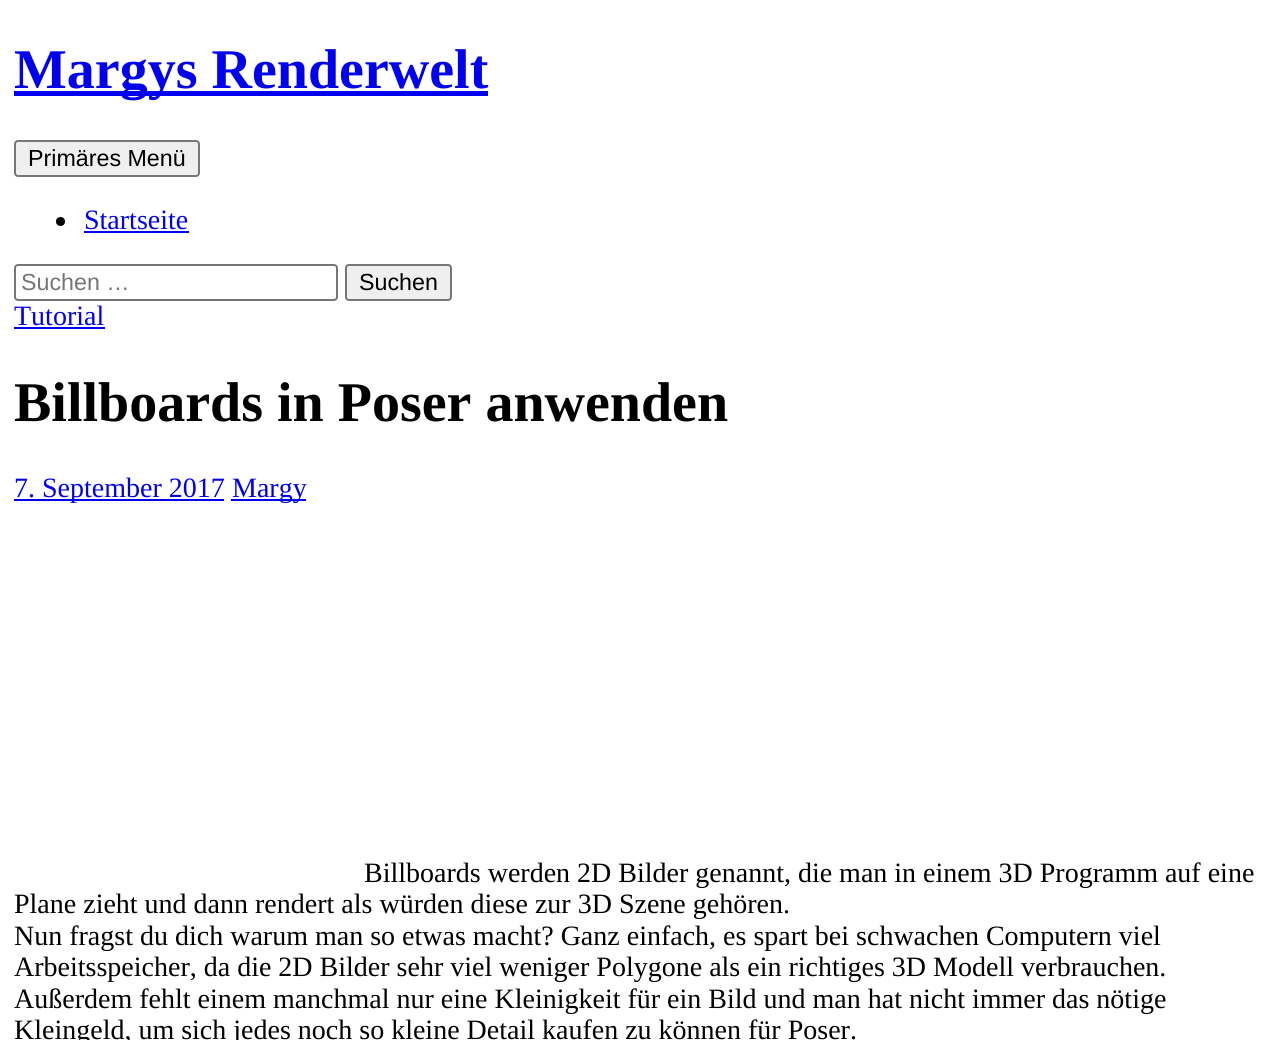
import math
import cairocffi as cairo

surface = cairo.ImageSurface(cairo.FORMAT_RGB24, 1278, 1040)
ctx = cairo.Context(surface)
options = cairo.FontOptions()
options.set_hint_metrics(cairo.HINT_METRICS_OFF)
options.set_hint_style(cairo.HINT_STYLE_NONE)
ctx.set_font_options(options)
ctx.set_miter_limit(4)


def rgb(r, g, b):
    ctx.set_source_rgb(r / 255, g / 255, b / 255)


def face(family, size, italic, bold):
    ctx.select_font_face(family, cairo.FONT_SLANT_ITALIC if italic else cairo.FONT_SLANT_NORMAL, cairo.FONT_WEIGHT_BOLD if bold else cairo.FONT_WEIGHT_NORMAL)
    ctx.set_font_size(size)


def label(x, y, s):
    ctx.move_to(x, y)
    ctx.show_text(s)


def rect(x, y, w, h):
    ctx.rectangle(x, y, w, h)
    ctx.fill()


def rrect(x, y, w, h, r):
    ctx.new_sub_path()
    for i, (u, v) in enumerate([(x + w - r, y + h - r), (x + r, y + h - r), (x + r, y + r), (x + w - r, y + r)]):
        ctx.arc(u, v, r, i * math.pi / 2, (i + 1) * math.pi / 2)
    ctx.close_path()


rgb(255, 255, 255)
ctx.paint()
rgb(0, 0, 238)
rect(14, 91, 474, 5)
face('Liberation Serif', 56, 0, 1)
label(14, 88, 'Margys Renderwelt')
rgb(239, 239, 239)
rrect(15, 141, 184, 35, 3)
ctx.fill_preserve()
rgb(118, 118, 118)
ctx.stroke()
face('Liberation Sans', 23.25, 0, 0)
rgb(0, 0, 0)
label(28, 166, 'Primäres Menü')
ctx.new_path()
ctx.arc(60.5, 221.5, 4.5, 0, 2 * math.pi)
ctx.fill()
face('Liberation Serif', 28, 0, 0)
rgb(0, 0, 238)
label(84, 229, 'Startseite')
rect(84, 231, 105, 2)
rrect(15, 265, 322, 35, 3)
rgb(118, 118, 118)
ctx.stroke()
face('Liberation Sans', 23.25, 0, 0)
rgb(117, 117, 117)
label(21, 290, 'Suchen …')
rgb(239, 239, 239)
rrect(346, 265, 105, 35, 3)
ctx.fill_preserve()
rgb(118, 118, 118)
ctx.stroke()
rgb(0, 0, 0)
label(359, 290, 'Suchen')
face('Liberation Serif', 28, 0, 0)
rgb(0, 0, 238)
label(14, 325, 'Tutorial')
rect(14, 327, 91, 2)
face('Liberation Serif', 56, 0, 1)
rgb(0, 0, 0)
label(14, 421, 'Billboards in Poser anwenden')
rgb(0, 0, 238)
rect(14, 499, 210, 2)
face('Liberation Serif', 28, 0, 0)
label(14, 497, '7. September 2017')
rect(231, 499, 75, 2)
label(232, 497, 'Margy')
rgb(0, 0, 0)
label(364, 882, 'Billboards werden 2D Bilder genannt, die man in einem 3D Programm auf eine')
label(14, 913, 'Plane zieht und dann rendert als würden diese zur 3D Szene gehören.')
label(14, 945, 'Nun fragst du dich warum man so etwas macht? Ganz einfach, es spart bei schwachen Computern viel')
label(14, 976, 'Arbeitsspeicher, da die 2D Bilder sehr viel weniger Polygone als ein richtiges 3D Modell verbrauchen.')
label(14, 1008, 'Außerdem fehlt einem manchmal nur eine Kleinigkeit für ein Bild und man hat nicht immer das nötige')
label(14, 1039, 'Kleingeld, um sich jedes noch so kleine Detail kaufen zu können für Poser.')
surface.write_to_png('render.png')
